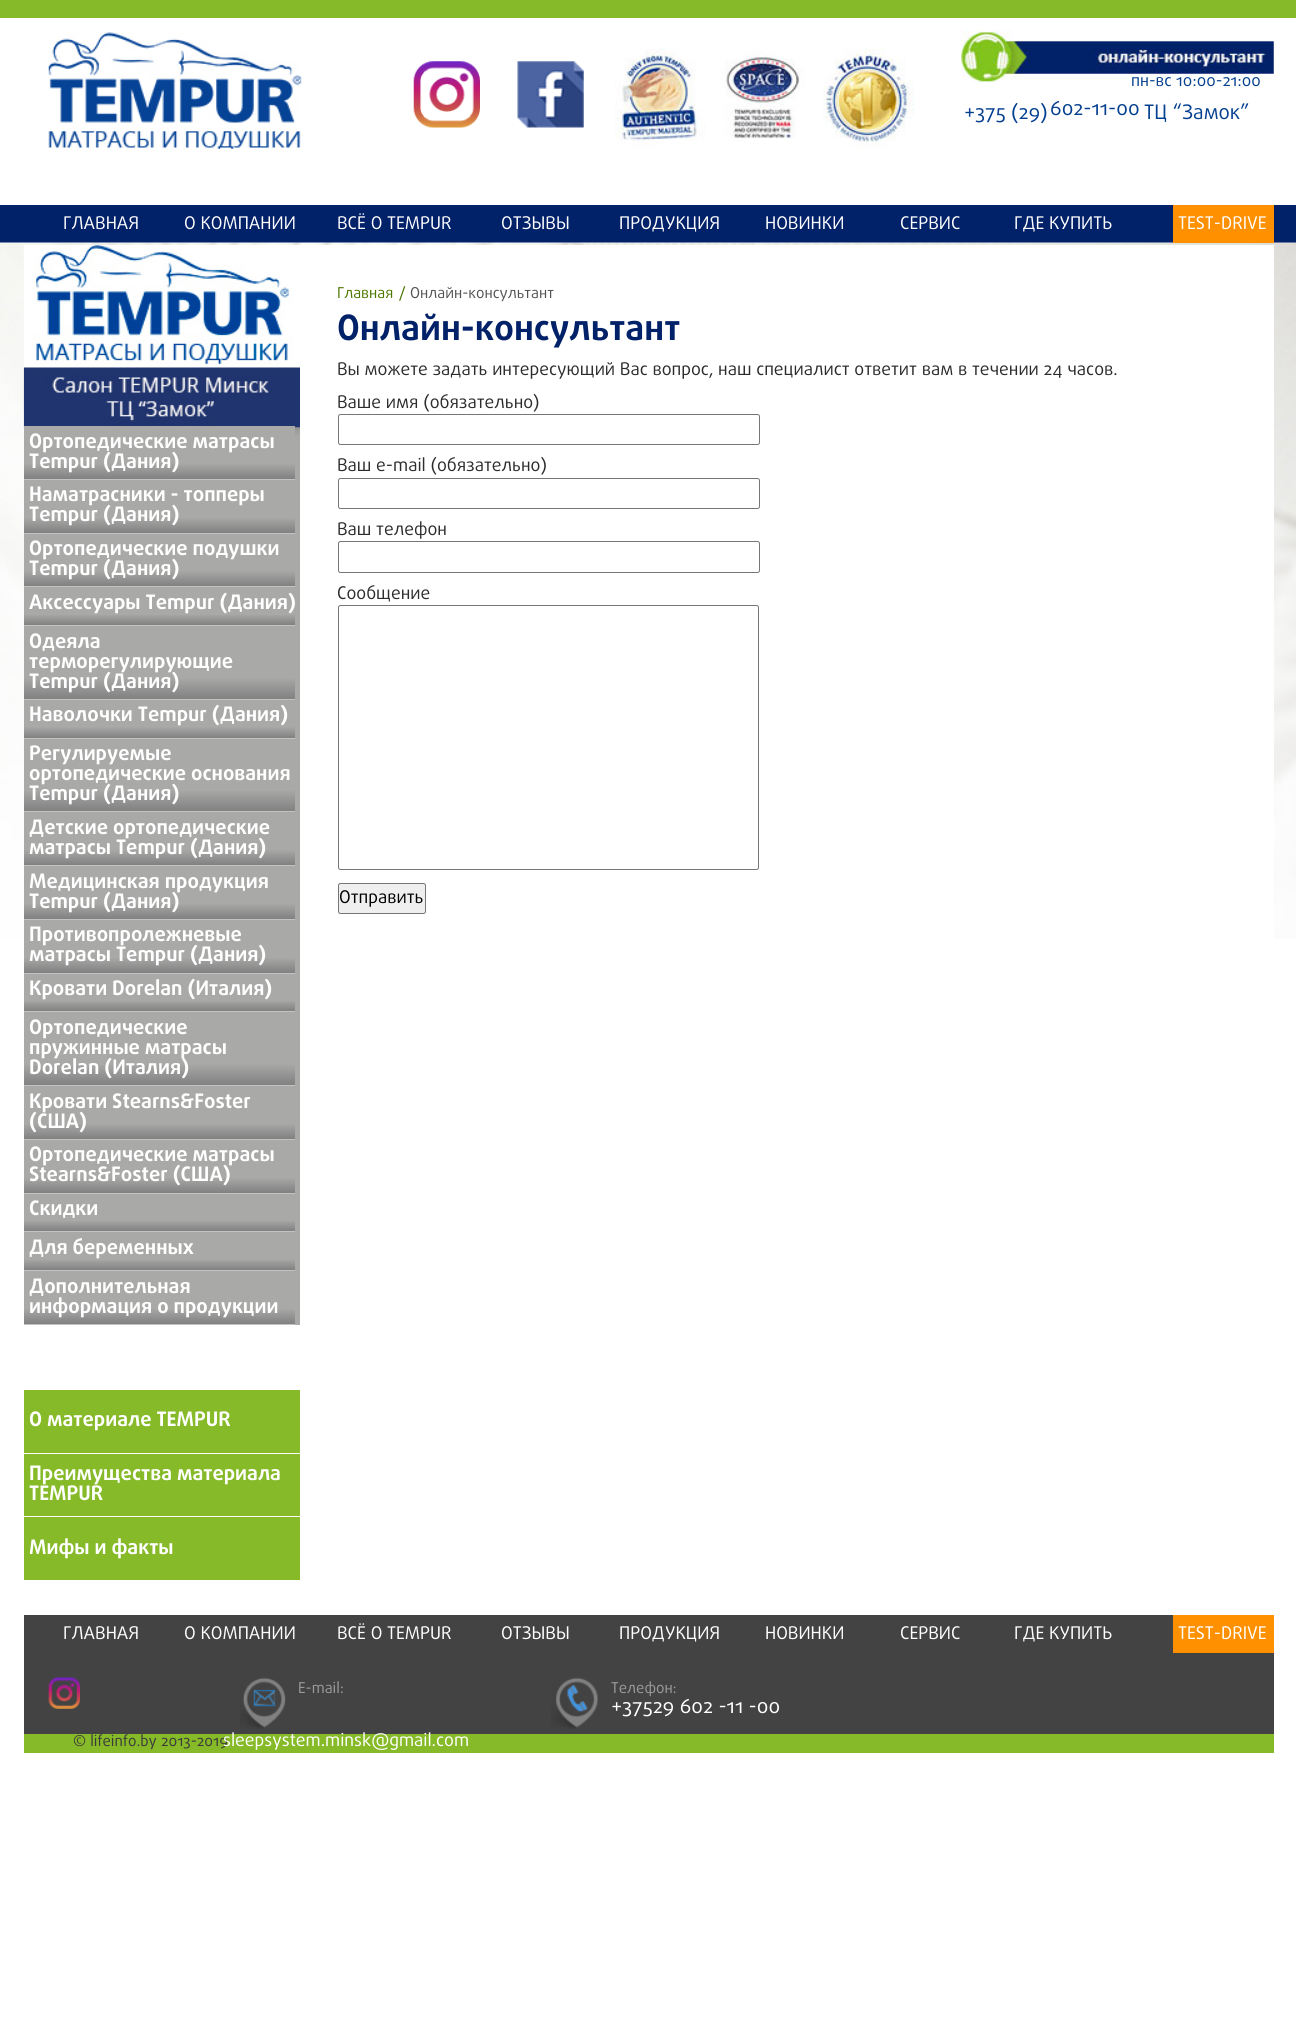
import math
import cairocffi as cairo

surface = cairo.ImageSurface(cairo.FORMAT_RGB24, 1296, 2023)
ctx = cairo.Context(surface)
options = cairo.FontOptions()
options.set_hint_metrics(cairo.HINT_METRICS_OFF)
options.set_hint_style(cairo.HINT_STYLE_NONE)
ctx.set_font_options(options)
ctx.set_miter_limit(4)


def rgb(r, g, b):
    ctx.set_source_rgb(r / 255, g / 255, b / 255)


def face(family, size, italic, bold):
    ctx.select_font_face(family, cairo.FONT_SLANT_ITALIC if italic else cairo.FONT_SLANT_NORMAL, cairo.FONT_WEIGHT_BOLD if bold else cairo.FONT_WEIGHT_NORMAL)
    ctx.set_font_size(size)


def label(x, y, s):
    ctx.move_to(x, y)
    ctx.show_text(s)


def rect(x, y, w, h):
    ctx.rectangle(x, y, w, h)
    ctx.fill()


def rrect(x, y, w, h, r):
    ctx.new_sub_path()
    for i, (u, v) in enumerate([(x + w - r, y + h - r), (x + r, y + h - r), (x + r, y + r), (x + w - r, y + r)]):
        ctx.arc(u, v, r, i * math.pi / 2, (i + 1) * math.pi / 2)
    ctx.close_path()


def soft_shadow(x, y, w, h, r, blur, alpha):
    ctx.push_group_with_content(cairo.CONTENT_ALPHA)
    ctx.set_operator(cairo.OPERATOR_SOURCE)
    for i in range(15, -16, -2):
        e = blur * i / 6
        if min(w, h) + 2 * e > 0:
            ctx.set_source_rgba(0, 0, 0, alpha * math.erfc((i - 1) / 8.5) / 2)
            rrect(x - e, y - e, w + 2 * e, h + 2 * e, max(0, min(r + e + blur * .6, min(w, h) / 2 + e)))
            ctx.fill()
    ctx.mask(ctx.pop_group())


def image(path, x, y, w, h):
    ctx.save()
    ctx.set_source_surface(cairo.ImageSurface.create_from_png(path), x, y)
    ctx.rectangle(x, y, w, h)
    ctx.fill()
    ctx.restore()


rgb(255, 255, 255)
ctx.paint()
rgb(134, 186, 40)
rect(0, 0, 1296, 18)
image('image0.png', 48, 32, 254, 117)
image('image1.png', 413, 61, 67, 67)
image('image2.png', 517, 61, 67, 67)
image('image3.png', 615, 48, 299, 101)
image('image4.png', 961, 30, 313, 54)
face('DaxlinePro', 16.25, 0, 0)
rgb(5, 64, 144)
label(1131, 86, 'пн-вс 10:00-21:00')
face('DaxlinePro', 20, 0, 0)
label(964, 119, '+375 (29)')
label(1050, 115, '602-11-00')
label(1144, 119, 'ТЦ “Замок”')
rgb(1, 33, 105)
rect(0, 205, 1296, 38)
face('DaxlinePro', 17.5, 0, 0)
rgb(255, 255, 255)
label(63, 229, 'ГЛАВНАЯ')
label(184, 229, 'О КОМПАНИИ')
label(337, 229, 'ВСЁ О TEMPUR')
label(501, 229, 'ОТЗЫВЫ')
label(619, 229, 'ПРОДУКЦИЯ')
label(765, 229, 'НОВИНКИ')
label(900, 229, 'СЕРВИС')
label(1014, 229, 'ГДЕ КУПИТЬ')
image('image5.png', 0, 242, 1296, 697)
rgb(255, 144, 0)
rect(1173, 205, 101, 38)
rgb(255, 255, 255)
label(1178, 229, 'TEST-DRIVE')
rect(300, 245, 974, 694)
rgb(169, 169, 168)
rect(24, 427, 276, 898)
ctx.save()
ctx.rectangle(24, 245, 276, 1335)
ctx.clip()
rgb(0, 0, 0)
soft_shadow(24, 245, 276, 183, 0, 6, 0.25)
ctx.restore()
image('image6.png', 23, 245, 277, 183)
gradient = cairo.LinearGradient(159, 426, 159, 479)
gradient.add_color_stop_rgba(0, 0.663, 0.663, 0.659, 1)
gradient.add_color_stop_rgba(0.7, 0.663, 0.663, 0.659, 1)
gradient.add_color_stop_rgba(1, 0.51, 0.506, 0.506, 1)
ctx.set_source(gradient)
rect(24, 426, 271, 53)
rgb(195, 195, 195)
rect(24, 479, 271, 1)
face('DaxlinePro', 20, 0, 1)
rgb(255, 255, 255)
label(29, 448, 'Ортопедические матрасы')
label(29, 468, 'Tempur (Дания)')
gradient = cairo.LinearGradient(159, 480, 159, 533)
gradient.add_color_stop_rgba(0, 0.663, 0.663, 0.659, 1)
gradient.add_color_stop_rgba(0.7, 0.663, 0.663, 0.659, 1)
gradient.add_color_stop_rgba(1, 0.51, 0.506, 0.506, 1)
ctx.set_source(gradient)
rect(24, 518, 271, 15)
rgb(195, 195, 195)
rect(24, 533, 271, 1)
rgb(255, 255, 255)
label(29, 501, 'Наматрасники - топперы')
label(29, 521, 'Tempur (Дания)')
gradient = cairo.LinearGradient(159, 534, 159, 586)
gradient.add_color_stop_rgba(0, 0.663, 0.663, 0.659, 1)
gradient.add_color_stop_rgba(0.7, 0.663, 0.663, 0.659, 1)
gradient.add_color_stop_rgba(1, 0.51, 0.506, 0.506, 1)
ctx.set_source(gradient)
rect(24, 571, 271, 15)
rgb(195, 195, 195)
rect(24, 586, 271, 1)
rgb(255, 255, 255)
label(29, 555, 'Ортопедические подушки')
label(29, 575, 'Tempur (Дания)')
gradient = cairo.LinearGradient(159, 588, 159, 625)
gradient.add_color_stop_rgba(0, 0.663, 0.663, 0.659, 1)
gradient.add_color_stop_rgba(0.7, 0.663, 0.663, 0.659, 1)
gradient.add_color_stop_rgba(1, 0.51, 0.506, 0.506, 1)
ctx.set_source(gradient)
rect(24, 615, 271, 10)
rgb(195, 195, 195)
rect(24, 625, 271, 1)
rgb(255, 255, 255)
label(29, 609, 'Аксессуары Tempur (Дания)')
gradient = cairo.LinearGradient(159, 626, 159, 699)
gradient.add_color_stop_rgba(0, 0.663, 0.663, 0.659, 1)
gradient.add_color_stop_rgba(0.7, 0.663, 0.663, 0.659, 1)
gradient.add_color_stop_rgba(1, 0.51, 0.506, 0.506, 1)
ctx.set_source(gradient)
rect(24, 678, 271, 21)
rgb(195, 195, 195)
rect(24, 699, 271, 1)
rgb(255, 255, 255)
label(29, 648, 'Одеяла')
label(29, 668, 'терморегулирующие')
label(29, 688, 'Tempur (Дания)')
gradient = cairo.LinearGradient(159, 700, 159, 738)
gradient.add_color_stop_rgba(0, 0.663, 0.663, 0.659, 1)
gradient.add_color_stop_rgba(0.7, 0.663, 0.663, 0.659, 1)
gradient.add_color_stop_rgba(1, 0.51, 0.506, 0.506, 1)
ctx.set_source(gradient)
rect(24, 727, 271, 11)
rgb(195, 195, 195)
rect(24, 738, 271, 1)
rgb(255, 255, 255)
label(29, 721, 'Наволочки Tempur (Дания)')
gradient = cairo.LinearGradient(159, 739, 159, 811)
gradient.add_color_stop_rgba(0, 0.663, 0.663, 0.659, 1)
gradient.add_color_stop_rgba(0.7, 0.663, 0.663, 0.659, 1)
gradient.add_color_stop_rgba(1, 0.51, 0.506, 0.506, 1)
ctx.set_source(gradient)
rect(24, 791, 271, 20)
rgb(195, 195, 195)
rect(24, 811, 271, 1)
rgb(255, 255, 255)
label(29, 760, 'Регулируемые')
label(29, 780, 'ортопедические основания')
label(29, 800, 'Tempur (Дания)')
gradient = cairo.LinearGradient(159, 813, 159, 865)
gradient.add_color_stop_rgba(0, 0.663, 0.663, 0.659, 1)
gradient.add_color_stop_rgba(0.7, 0.663, 0.663, 0.659, 1)
gradient.add_color_stop_rgba(1, 0.51, 0.506, 0.506, 1)
ctx.set_source(gradient)
rect(24, 850, 271, 15)
rgb(195, 195, 195)
rect(24, 865, 271, 1)
rgb(255, 255, 255)
label(29, 834, 'Детские ортопедические')
label(29, 854, 'матрасы Tempur (Дания)')
gradient = cairo.LinearGradient(159, 866, 159, 919)
gradient.add_color_stop_rgba(0, 0.663, 0.663, 0.659, 1)
gradient.add_color_stop_rgba(0.7, 0.663, 0.663, 0.659, 1)
gradient.add_color_stop_rgba(1, 0.51, 0.506, 0.506, 1)
ctx.set_source(gradient)
rect(24, 904, 271, 15)
rgb(195, 195, 195)
rect(24, 919, 271, 1)
rgb(255, 255, 255)
label(29, 888, 'Медицинская продукция')
label(29, 908, 'Tempur (Дания)')
gradient = cairo.LinearGradient(159, 920, 159, 973)
gradient.add_color_stop_rgba(0, 0.663, 0.663, 0.659, 1)
gradient.add_color_stop_rgba(0.7, 0.663, 0.663, 0.659, 1)
gradient.add_color_stop_rgba(1, 0.51, 0.506, 0.506, 1)
ctx.set_source(gradient)
rect(24, 958, 271, 15)
rgb(195, 195, 195)
rect(24, 973, 271, 1)
rgb(255, 255, 255)
label(29, 941, 'Противопролежневые')
label(29, 961, 'матрасы Tempur (Дания)')
gradient = cairo.LinearGradient(159, 974, 159, 1011)
gradient.add_color_stop_rgba(0, 0.663, 0.663, 0.659, 1)
gradient.add_color_stop_rgba(0.7, 0.663, 0.663, 0.659, 1)
gradient.add_color_stop_rgba(1, 0.51, 0.506, 0.506, 1)
ctx.set_source(gradient)
rect(24, 1001, 271, 10)
rgb(195, 195, 195)
rect(24, 1011, 271, 1)
rgb(255, 255, 255)
label(29, 995, 'Кровати Dorelan (Италия)')
gradient = cairo.LinearGradient(159, 1013, 159, 1085)
gradient.add_color_stop_rgba(0, 0.663, 0.663, 0.659, 1)
gradient.add_color_stop_rgba(0.7, 0.663, 0.663, 0.659, 1)
gradient.add_color_stop_rgba(1, 0.51, 0.506, 0.506, 1)
ctx.set_source(gradient)
rect(24, 1065, 271, 20)
rgb(195, 195, 195)
rect(24, 1085, 271, 1)
rgb(255, 255, 255)
label(29, 1034, 'Ортопедические')
label(29, 1054, 'пружинные матрасы')
label(29, 1074, 'Dorelan (Италия)')
gradient = cairo.LinearGradient(159, 1086, 159, 1139)
gradient.add_color_stop_rgba(0, 0.663, 0.663, 0.659, 1)
gradient.add_color_stop_rgba(0.7, 0.663, 0.663, 0.659, 1)
gradient.add_color_stop_rgba(1, 0.51, 0.506, 0.506, 1)
ctx.set_source(gradient)
rect(24, 1124, 271, 15)
rgb(195, 195, 195)
rect(24, 1139, 271, 1)
rgb(255, 255, 255)
label(29, 1108, 'Кровати Stearns&Foster')
label(29, 1128, '(США)')
gradient = cairo.LinearGradient(159, 1140, 159, 1193)
gradient.add_color_stop_rgba(0, 0.663, 0.663, 0.659, 1)
gradient.add_color_stop_rgba(0.7, 0.663, 0.663, 0.659, 1)
gradient.add_color_stop_rgba(1, 0.51, 0.506, 0.506, 1)
ctx.set_source(gradient)
rect(24, 1178, 271, 15)
rgb(195, 195, 195)
rect(24, 1193, 271, 1)
rgb(255, 255, 255)
label(29, 1161, 'Ортопедические матрасы')
label(29, 1181, 'Stearns&Foster (США)')
gradient = cairo.LinearGradient(159, 1194, 159, 1231)
gradient.add_color_stop_rgba(0, 0.663, 0.663, 0.659, 1)
gradient.add_color_stop_rgba(0.7, 0.663, 0.663, 0.659, 1)
gradient.add_color_stop_rgba(1, 0.51, 0.506, 0.506, 1)
ctx.set_source(gradient)
rect(24, 1221, 271, 10)
rgb(195, 195, 195)
rect(24, 1231, 271, 1)
rgb(255, 255, 255)
label(29, 1215, 'Скидки')
gradient = cairo.LinearGradient(159, 1233, 159, 1270)
gradient.add_color_stop_rgba(0, 0.663, 0.663, 0.659, 1)
gradient.add_color_stop_rgba(0.7, 0.663, 0.663, 0.659, 1)
gradient.add_color_stop_rgba(1, 0.51, 0.506, 0.506, 1)
ctx.set_source(gradient)
rect(24, 1260, 271, 10)
rgb(195, 195, 195)
rect(24, 1270, 271, 1)
rgb(255, 255, 255)
label(29, 1254, 'Для беременных')
gradient = cairo.LinearGradient(159, 1271, 159, 1324)
gradient.add_color_stop_rgba(0, 0.663, 0.663, 0.659, 1)
gradient.add_color_stop_rgba(0.7, 0.663, 0.663, 0.659, 1)
gradient.add_color_stop_rgba(1, 0.51, 0.506, 0.506, 1)
ctx.set_source(gradient)
rect(24, 1309, 271, 15)
rgb(195, 195, 195)
rect(24, 1324, 271, 1)
rgb(255, 255, 255)
label(29, 1293, 'Дополнительная')
label(29, 1313, 'информация о продукции')
rgb(134, 186, 40)
rect(24, 1390, 276, 63)
rgb(255, 255, 255)
label(29, 1426, 'О материале TEMPUR')
rgb(134, 186, 40)
rect(24, 1454, 276, 62)
rgb(255, 255, 255)
label(29, 1480, 'Преимущества материала')
label(29, 1500, 'TEMPUR')
rgb(134, 186, 40)
rect(24, 1517, 276, 63)
rgb(255, 255, 255)
label(29, 1554, 'Мифы и факты')
face('DaxlinePro', 15, 0, 0)
rgb(77, 119, 1)
label(337, 298, 'Главная')
label(399, 298, '/')
rgb(83, 83, 83)
label(410, 298, 'Онлайн-консультант')
face('DaxlinePro', 35, 0, 1)
rgb(1, 33, 105)
label(337, 340, 'Онлайн-консультант')
face('DaxlinePro', 17.5, 0, 0)
rgb(44, 44, 44)
label(337, 375, 'Вы можете задать интересующий Вас вопрос, наш специалист ответит вам в течении 24 часов.')
label(337, 408, 'Ваше имя (обязательно)')
rrect(338.5, 414.5, 421, 30, 2)
rgb(118, 118, 118)
ctx.set_line_width(1)
ctx.stroke()
rgb(44, 44, 44)
label(337, 471, 'Ваш e-mail (обязательно)')
rrect(338.5, 478.5, 421, 30, 2)
rgb(118, 118, 118)
ctx.stroke()
rgb(44, 44, 44)
label(337, 535, 'Ваш телефон')
rrect(338.5, 541.5, 421, 31, 2)
rgb(118, 118, 118)
ctx.stroke()
rgb(44, 44, 44)
label(337, 599, 'Сообщение')
rrect(338.5, 605.5, 420, 264, 2)
rgb(118, 118, 118)
ctx.stroke()
rgb(239, 239, 239)
rrect(338.5, 883.5, 87, 30, 2)
ctx.fill_preserve()
rgb(118, 118, 118)
ctx.stroke()
rgb(0, 0, 0)
label(339, 903, 'Отправить')
rgb(67, 67, 67)
rect(24, 1615, 1250, 119)
rgb(255, 255, 255)
label(63, 1639, 'ГЛАВНАЯ')
label(184, 1639, 'О КОМПАНИИ')
label(337, 1639, 'ВСЁ О TEMPUR')
label(501, 1639, 'ОТЗЫВЫ')
label(619, 1639, 'ПРОДУКЦИЯ')
label(765, 1639, 'НОВИНКИ')
label(900, 1639, 'СЕРВИС')
label(1014, 1639, 'ГДЕ КУПИТЬ')
rgb(255, 144, 0)
rect(1173, 1615, 101, 38)
rgb(255, 255, 255)
label(1178, 1639, 'TEST-DRIVE')
rgb(134, 186, 40)
rect(24, 1734, 1250, 19)
face('DaxlinePro', 15, 0, 0)
rgb(59, 58, 58)
label(73, 1746, '© lifeinfo.by 2013-2019')
image('image7.png', 48, 1677, 32, 32)
image('image8.png', 240, 1677, 46, 52)
rgb(155, 155, 155)
label(298, 1693, 'E-mail:')
face('DaxlinePro', 17.5, 0, 0)
rgb(255, 255, 255)
label(223, 1746, 'sleepsystem.minsk@gmail.com')
image('image9.png', 551, 1677, 47, 52)
face('DaxlinePro', 15, 0, 0)
rgb(155, 155, 155)
label(611, 1693, 'Телефон:')
face('DaxlinePro', 20, 0, 0)
rgb(255, 255, 255)
label(611, 1713, '+37529 602 -11 -00')
surface.write_to_png('render.png')
